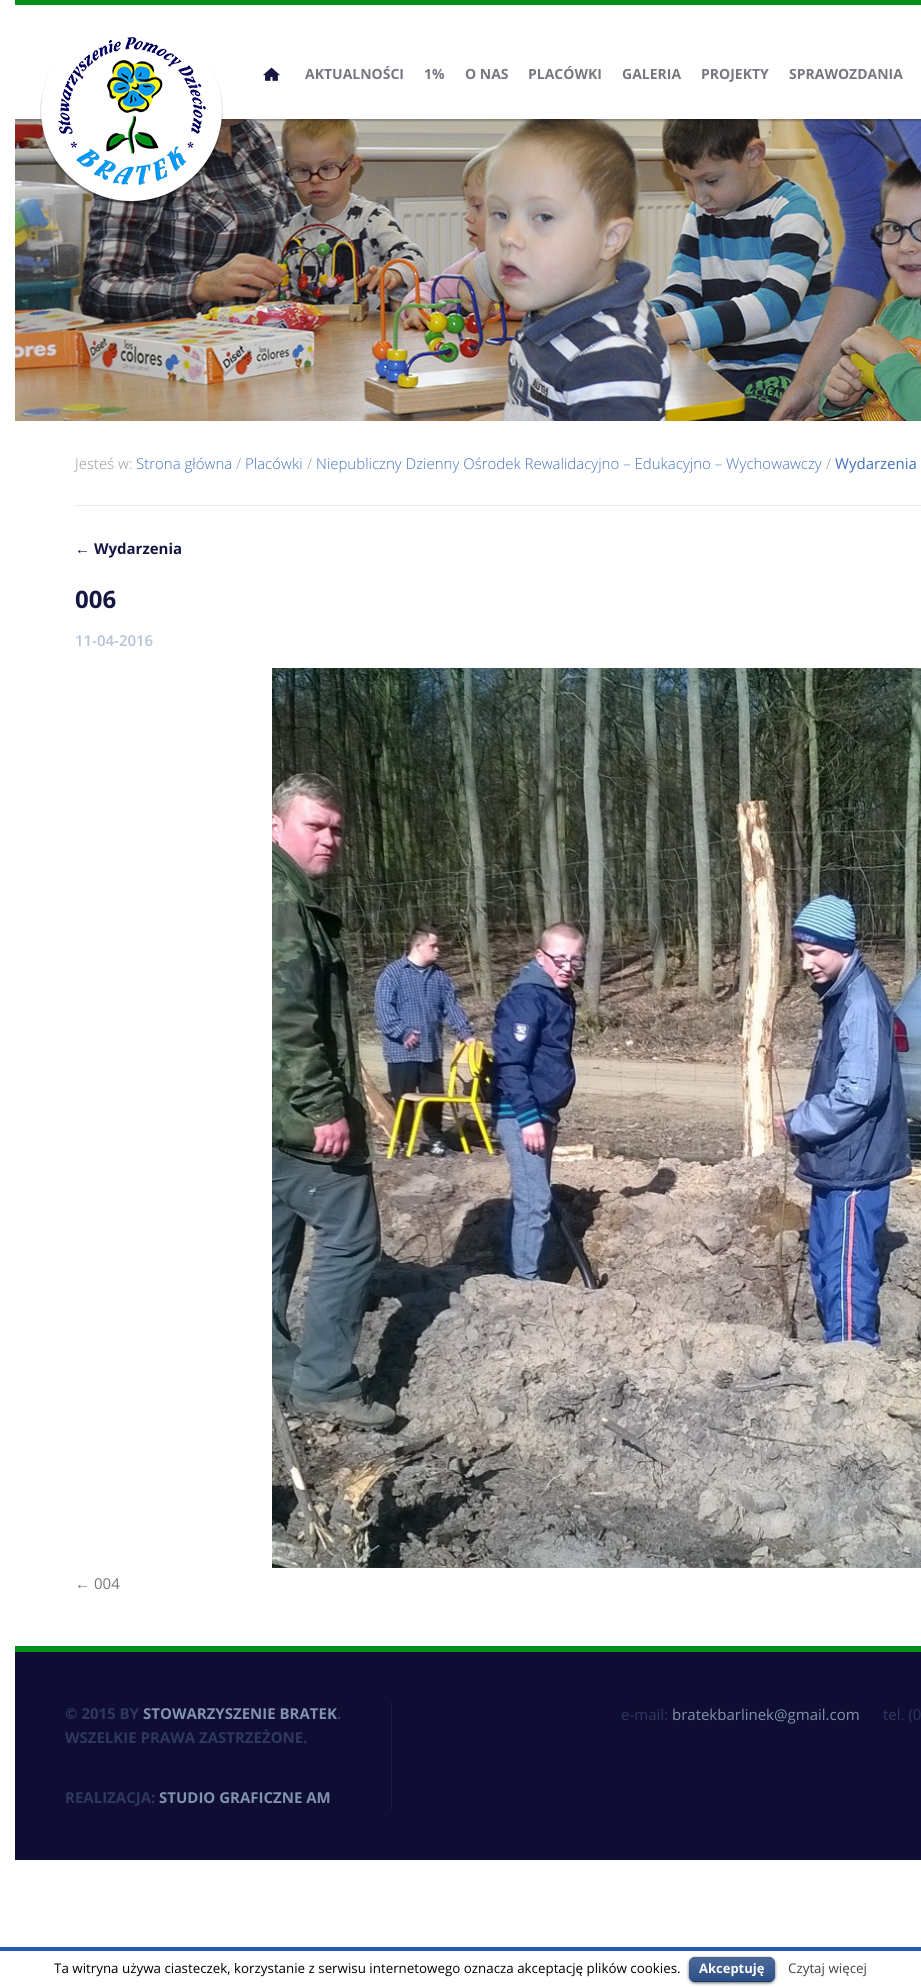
import math
import cairocffi as cairo

surface = cairo.ImageSurface(cairo.FORMAT_RGB24, 921, 1987)
ctx = cairo.Context(surface)
options = cairo.FontOptions()
options.set_hint_metrics(cairo.HINT_METRICS_OFF)
options.set_hint_style(cairo.HINT_STYLE_NONE)
ctx.set_font_options(options)
ctx.set_miter_limit(4)


def rgb(r, g, b):
    ctx.set_source_rgb(r / 255, g / 255, b / 255)


def face(family, size, italic, bold):
    ctx.select_font_face(family, cairo.FONT_SLANT_ITALIC if italic else cairo.FONT_SLANT_NORMAL, cairo.FONT_WEIGHT_BOLD if bold else cairo.FONT_WEIGHT_NORMAL)
    ctx.set_font_size(size)


def label(x, y, s):
    ctx.move_to(x, y)
    ctx.show_text(s)


def rect(x, y, w, h):
    ctx.rectangle(x, y, w, h)
    ctx.fill()


def rrect(x, y, w, h, r):
    ctx.new_sub_path()
    for i, (u, v) in enumerate([(x + w - r, y + h - r), (x + r, y + h - r), (x + r, y + r), (x + w - r, y + r)]):
        ctx.arc(u, v, r, i * math.pi / 2, (i + 1) * math.pi / 2)
    ctx.close_path()


def soft_shadow(x, y, w, h, r, blur, alpha):
    ctx.push_group_with_content(cairo.CONTENT_ALPHA)
    ctx.set_operator(cairo.OPERATOR_SOURCE)
    for i in range(15, -16, -2):
        e = blur * i / 6
        if min(w, h) + 2 * e > 0:
            ctx.set_source_rgba(0, 0, 0, alpha * math.erfc((i - 1) / 8.5) / 2)
            rrect(x - e, y - e, w + 2 * e, h + 2 * e, max(0, min(r + e + blur * .6, min(w, h) / 2 + e)))
            ctx.fill()
    ctx.mask(ctx.pop_group())


def image(path, x, y, w, h):
    ctx.save()
    ctx.set_source_surface(cairo.ImageSurface.create_from_png(path), x, y)
    ctx.rectangle(x, y, w, h)
    ctx.fill()
    ctx.restore()


rgb(255, 255, 255)
ctx.paint()
rgb(0, 144, 25)
rect(15, 0, 906, 5)
image('image2.png', 15, 119, 906, 302)
image('image0.png', 40, 37, 183, 167)
image('image1.png', 263, 67, 17, 14)
face('Open Sans', 14, 0, 1)
rgb(119, 119, 130)
label(305, 79, 'AKTUALNOŚCI')
label(424, 79, '1%')
label(465, 79, 'O NAS')
label(528, 79, 'PLACÓWKI')
label(622, 79, 'GALERIA')
label(701, 79, 'PROJEKTY')
label(789, 79, 'SPRAWOZDANIA')
rgb(232, 233, 234)
rect(75, 505, 846, 1)
face('Open Sans Light', 15, 0, 0)
rgb(149, 149, 149)
label(75, 469, 'Jesteś w:')
rgb(66, 114, 190)
label(136, 469, 'Strona główna')
rgb(149, 149, 149)
label(236, 469, '/')
rgb(66, 114, 190)
label(245, 469, 'Placówki')
rgb(149, 149, 149)
label(307, 469, '/')
rgb(66, 114, 190)
label(316, 469, 'Niepubliczny Dzienny Ośrodek Rewalidacyjno – Edukacyjno – Wychowawczy')
rgb(149, 149, 149)
label(826, 469, '/')
face('Open Sans', 15, 0, 0)
rgb(66, 114, 190)
label(835, 469, 'Wydarzenia')
face('Liberation Sans', 15, 1, 0)
rgb(23, 22, 66)
label(75, 554, '←')
face('Open Sans', 15, 0, 1)
label(94, 554, 'Wydarzenia')
face('Open Sans', 24, 0, 1)
label(75, 608, '006')
face('Open Sans SemiBold', 15, 0, 0)
rgb(181, 194, 215)
label(75, 646, '11-04-2016')
image('image3.png', 272, 668, 649, 900)
face('Liberation Sans', 15, 0, 0)
rgb(119, 119, 119)
label(75, 1589, '←')
face('Open Sans', 15, 0, 0)
label(94, 1589, '004')
rgb(15, 13, 51)
rect(15, 1652, 906, 208)
rgb(0, 144, 25)
rect(15, 1646, 906, 6)
rgb(27, 25, 71)
rect(391, 1702, 1, 108)
face('Open Sans', 15, 0, 1)
rgb(45, 56, 97)
label(65, 1719, '© 2015 BY')
rgb(127, 146, 175)
label(143, 1719, 'STOWARZYSZENIE BRATEK')
rgb(45, 56, 97)
label(337, 1719, '.')
label(65, 1743, 'WSZELKIE PRAWA ZASTRZEŻONE.')
label(65, 1803, 'REALIZACJA:')
rgb(127, 146, 175)
label(159, 1803, 'STUDIO GRAFICZNE AM')
face('Open Sans', 15, 0, 0)
rgb(45, 56, 97)
label(621, 1720, 'e-mail:')
rgb(127, 146, 175)
label(672, 1720, 'bratekbarlinek@gmail.com')
rgb(45, 56, 97)
label(883, 1720, 'tel. (0')
rgb(35, 91, 181)
rect(0, 1947, 921, 4)
face('Open Sans', 13.35, 0, 0)
rgb(0, 0, 0)
label(54, 1973, 'Ta witryna używa ciasteczek, korzystanie z serwisu internetowego oznacza akceptację plików cookies.')
rgb(0, 0, 0)
soft_shadow(689, 1958, 86, 25, 6, 1.5, 0.6)
rgb(13, 52, 115)
rrect(689, 1957, 86, 25, 6)
ctx.fill()
image('image4.png', 689, 1957, 86, 25)
ctx.set_source_rgba(0, 0, 0, 0.25)
rect(692, 1981, 80, 1)
face('Open Sans', 13, 0, 1)
rgb(255, 255, 255)
label(699, 1973, 'Akceptuję')
face('Open Sans', 13.35, 0, 0)
rgb(68, 68, 68)
label(788, 1973, 'Czytaj więcej')
surface.write_to_png('render.png')
